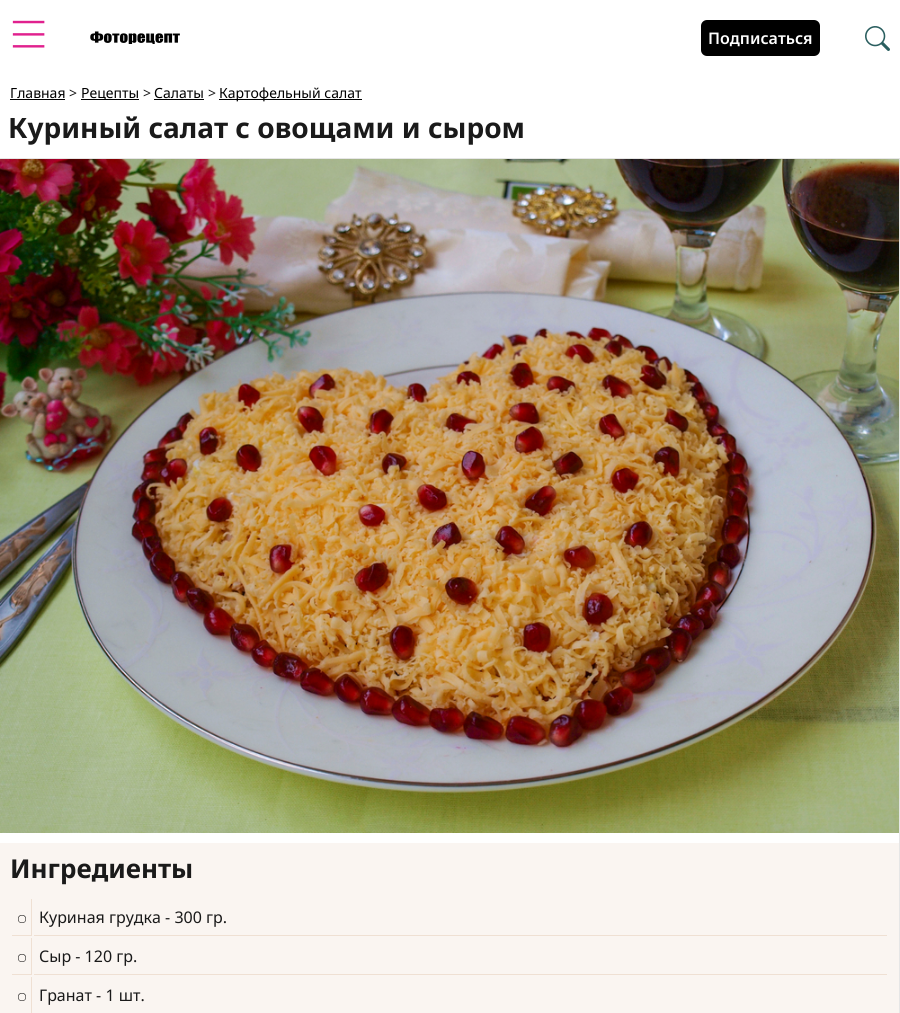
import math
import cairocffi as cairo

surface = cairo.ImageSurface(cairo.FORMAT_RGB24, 900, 1013)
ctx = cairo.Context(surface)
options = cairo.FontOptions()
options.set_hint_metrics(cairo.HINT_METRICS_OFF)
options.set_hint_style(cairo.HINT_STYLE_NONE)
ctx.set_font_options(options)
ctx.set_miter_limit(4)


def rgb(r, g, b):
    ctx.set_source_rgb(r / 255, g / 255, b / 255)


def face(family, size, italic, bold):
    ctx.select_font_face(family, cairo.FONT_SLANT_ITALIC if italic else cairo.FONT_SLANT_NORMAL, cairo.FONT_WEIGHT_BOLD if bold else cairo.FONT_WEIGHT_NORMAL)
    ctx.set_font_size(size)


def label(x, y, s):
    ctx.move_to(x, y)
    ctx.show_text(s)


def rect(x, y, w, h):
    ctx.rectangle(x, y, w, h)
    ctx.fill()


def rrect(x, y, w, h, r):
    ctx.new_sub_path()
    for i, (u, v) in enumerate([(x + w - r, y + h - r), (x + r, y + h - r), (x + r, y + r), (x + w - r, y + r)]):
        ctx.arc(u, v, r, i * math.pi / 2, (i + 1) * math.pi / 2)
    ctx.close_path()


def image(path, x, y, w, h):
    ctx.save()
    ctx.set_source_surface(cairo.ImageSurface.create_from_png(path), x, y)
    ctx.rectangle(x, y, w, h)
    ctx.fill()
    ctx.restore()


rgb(255, 255, 255)
ctx.paint()
image('image0.png', 12, 20, 33, 28)
image('image1.png', 90, 31, 90, 13)
rgb(0, 0, 0)
rrect(701, 20, 119, 36, 6)
ctx.fill()
face('Noto Sans SemiBold', 16, 0, 0)
rgb(255, 255, 255)
label(708, 44, 'Подписаться')
image('image2.png', 865, 26, 25, 25)
face('Noto Sans', 14, 0, 0)
rgb(0, 0, 0)
label(10, 98, 'Главная')
rect(10, 99, 55, 1)
rgb(26, 26, 26)
label(69, 98, '>')
rgb(0, 0, 0)
rect(81, 99, 58, 1)
label(81, 98, 'Рецепты')
rgb(26, 26, 26)
label(143, 98, '>')
rgb(0, 0, 0)
label(154, 98, 'Салаты')
rect(154, 99, 50, 1)
rgb(26, 26, 26)
label(208, 98, '>')
rgb(0, 0, 0)
rect(219, 99, 143, 1)
label(219, 98, 'Картофельный салат')
face('Noto Sans', 28, 0, 1)
rgb(26, 26, 26)
label(8, 138, 'Куриный салат с овощами и сыром')
rgb(230, 230, 230)
rect(0, 158, 900, 1)
rect(899, 159, 1, 854)
image('image3.png', 0, 159, 899, 674)
rgb(250, 245, 241)
rect(0, 843, 899, 170)
face('Noto Sans', 26, 0, 1)
rgb(26, 26, 26)
label(10, 878, 'Ингредиенты')
rgb(239, 224, 211)
rect(31, 899, 1, 37)
rect(12, 935, 20, 1)
image('image4.png', 18, 915, 8, 8)
rect(34, 935, 853, 1)
face('Noto Sans', 16, 0, 0)
rgb(26, 26, 26)
label(39, 923, 'Куриная грудка - 300 гр.')
rgb(239, 224, 211)
rect(31, 938, 1, 37)
rect(12, 974, 20, 1)
image('image4.png', 18, 954, 8, 8)
rect(34, 974, 853, 1)
rgb(26, 26, 26)
label(39, 962, 'Сыр - 120 гр.')
rgb(239, 224, 211)
rect(31, 977, 1, 36)
image('image4.png', 18, 993, 8, 8)
rgb(26, 26, 26)
label(39, 1001, 'Гранат - 1 шт.')
surface.write_to_png('render.png')
